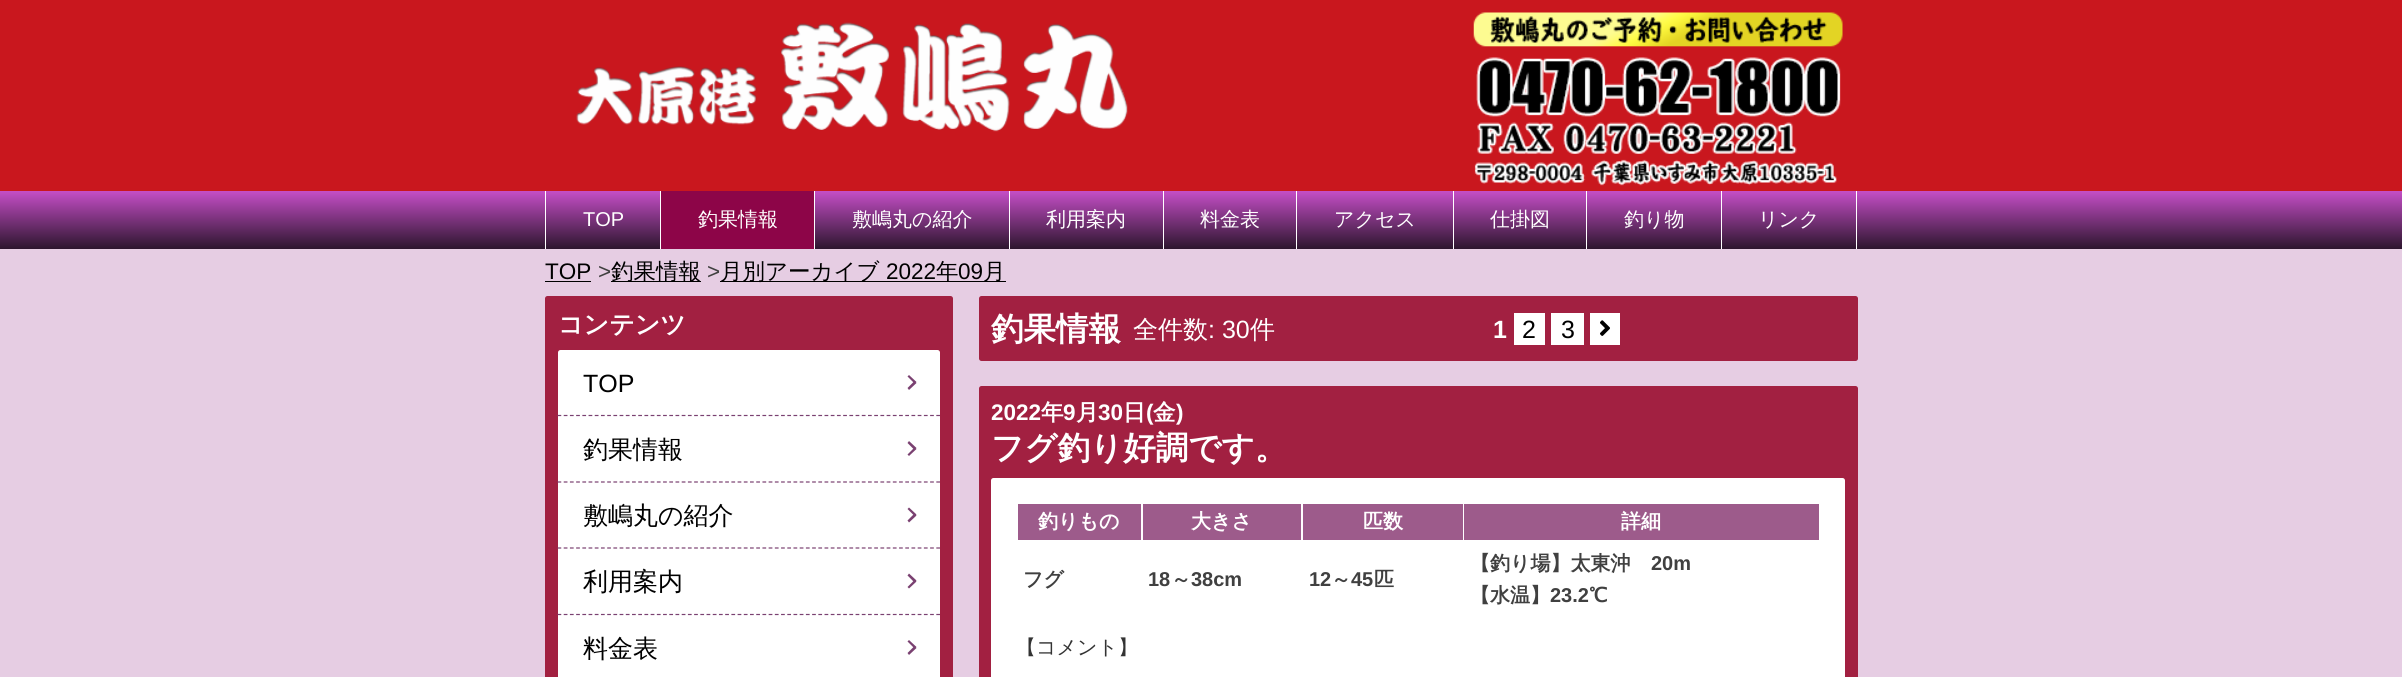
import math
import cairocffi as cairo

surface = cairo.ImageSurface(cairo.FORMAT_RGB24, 2402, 677)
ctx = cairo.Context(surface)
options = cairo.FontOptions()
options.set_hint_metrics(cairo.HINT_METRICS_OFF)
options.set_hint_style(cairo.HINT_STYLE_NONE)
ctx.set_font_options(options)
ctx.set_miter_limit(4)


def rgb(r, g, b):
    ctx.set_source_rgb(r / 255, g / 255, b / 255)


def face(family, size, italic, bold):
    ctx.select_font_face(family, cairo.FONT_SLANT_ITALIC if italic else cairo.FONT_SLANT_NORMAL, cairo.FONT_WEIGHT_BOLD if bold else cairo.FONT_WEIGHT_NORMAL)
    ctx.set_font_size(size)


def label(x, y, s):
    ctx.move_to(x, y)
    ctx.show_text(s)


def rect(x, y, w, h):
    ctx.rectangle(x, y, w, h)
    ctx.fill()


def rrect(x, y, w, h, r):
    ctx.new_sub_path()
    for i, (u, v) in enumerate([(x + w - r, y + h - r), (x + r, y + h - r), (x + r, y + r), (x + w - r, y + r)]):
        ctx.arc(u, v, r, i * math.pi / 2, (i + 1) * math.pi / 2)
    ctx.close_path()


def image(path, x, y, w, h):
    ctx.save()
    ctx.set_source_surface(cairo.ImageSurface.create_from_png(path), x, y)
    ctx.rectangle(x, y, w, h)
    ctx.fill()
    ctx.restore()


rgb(230, 205, 227)
ctx.paint()
rgb(201, 23, 30)
rect(0, 0, 2402, 191)
image('image0.png', 576, 22, 552, 110)
image('image1.png', 1473, 12, 370, 174)
gradient = cairo.LinearGradient(1201, 191, 1201, 249)
gradient.add_color_stop_rgba(0, 0.773, 0.306, 0.78, 1)
gradient.add_color_stop_rgba(1, 0.176, 0.086, 0.18, 1)
ctx.set_source(gradient)
rect(0, 191, 2402, 58)
rgb(255, 255, 255)
rect(660, 191, 1, 58)
rect(545, 191, 1, 58)
face('Liberation Sans', 20, 0, 0)
label(583, 226, 'TOP')
rect(814, 191, 1, 58)
rgb(141, 5, 72)
rect(661, 191, 153, 58)
face('WenQuanYi Zen Hei Medium', 20, 0, 0)
rgb(255, 255, 255)
label(698, 226, '釣果情報')
rect(1009, 191, 1, 58)
label(852, 226, '敷嶋丸の紹介')
rect(1163, 191, 1, 58)
label(1046, 226, '利用案内')
rect(1296, 191, 1, 58)
label(1200, 226, '料金表')
rect(1453, 191, 1, 58)
label(1334, 226, 'アクセス')
rect(1586, 191, 1, 58)
label(1490, 226, '仕掛図')
rect(1721, 191, 1, 58)
label(1624, 226, '釣り物')
rect(1856, 191, 1, 58)
label(1758, 226, 'リンク')
face('Liberation Sans', 22.5, 0, 0)
rgb(0, 0, 0)
label(545, 279, 'TOP')
rect(545, 281, 46, 1)
rgb(64, 64, 64)
label(598, 279, '>')
rgb(0, 0, 0)
rect(611, 281, 90, 1)
face('WenQuanYi Zen Hei Medium', 22.5, 0, 0)
label(611, 279, '釣果情報')
face('Liberation Sans', 22.5, 0, 0)
rgb(64, 64, 64)
label(707, 279, '>')
rgb(0, 0, 0)
rect(720, 281, 286, 1)
face('WenQuanYi Zen Hei Medium', 22.5, 0, 0)
label(720, 279, '月別アーカイブ')
face('Liberation Sans', 22.5, 0, 0)
label(886, 279, '2022')
face('WenQuanYi Zen Hei Medium', 22.5, 0, 0)
label(936, 279, '年')
face('Liberation Sans', 22.5, 0, 0)
label(958, 279, '09')
face('WenQuanYi Zen Hei Medium', 22.5, 0, 0)
label(983, 279, '月')
rgb(162, 32, 65)
rrect(545, 296, 408, 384, 2.5)
ctx.fill()
face('WenQuanYi Zen Hei', 25, 0, 1)
rgb(255, 255, 255)
label(558, 333, 'コンテンツ')
rrect(558, 350, 382, 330, 2.5)
ctx.fill()
ctx.new_path()
ctx.move_to(557.5, 415.5)
ctx.line_to(940, 415.5)
rgb(122, 65, 113)
ctx.set_line_width(1.2)
ctx.set_dash([3.75, 2.46])
ctx.stroke()
face('Liberation Sans', 25, 0, 0)
rgb(0, 0, 0)
label(583, 392, 'TOP')
rgb(122, 65, 113)
ctx.new_path()
ctx.move_to(909, 375)
ctx.line_to(916.5, 382)
ctx.line_to(914.5, 383.5)
ctx.line_to(907.5, 376.5)
ctx.close_path()
ctx.fill()
ctx.new_path()
ctx.move_to(914.5, 381)
ctx.line_to(916.5, 383)
ctx.line_to(909, 390)
ctx.line_to(907.5, 388)
ctx.close_path()
ctx.fill()
ctx.new_path()
ctx.move_to(557.5, 482)
ctx.line_to(940, 482)
ctx.stroke()
face('WenQuanYi Zen Hei Medium', 25, 0, 0)
rgb(0, 0, 0)
label(583, 458, '釣果情報')
rgb(122, 65, 113)
ctx.new_path()
ctx.move_to(909, 441)
ctx.line_to(916.5, 448)
ctx.line_to(914.5, 450)
ctx.line_to(907.5, 443)
ctx.close_path()
ctx.fill()
ctx.new_path()
ctx.move_to(914.5, 447.5)
ctx.line_to(916.5, 449)
ctx.line_to(909, 456)
ctx.line_to(907.5, 454.5)
ctx.close_path()
ctx.fill()
ctx.new_path()
ctx.move_to(557.5, 548)
ctx.line_to(940, 548)
ctx.stroke()
rgb(0, 0, 0)
label(583, 524, '敷嶋丸の紹介')
rgb(122, 65, 113)
ctx.new_path()
ctx.move_to(909, 507.5)
ctx.line_to(916.5, 514.5)
ctx.line_to(914.5, 516)
ctx.line_to(907.5, 509)
ctx.close_path()
ctx.fill()
ctx.new_path()
ctx.move_to(914.5, 513.5)
ctx.line_to(916.5, 515.5)
ctx.line_to(909, 522.5)
ctx.line_to(907.5, 520.5)
ctx.close_path()
ctx.fill()
ctx.new_path()
ctx.move_to(557.5, 614.5)
ctx.line_to(940, 614.5)
ctx.stroke()
rgb(0, 0, 0)
label(583, 590, '利用案内')
rgb(122, 65, 113)
ctx.new_path()
ctx.move_to(909, 573.5)
ctx.line_to(916.5, 580.5)
ctx.line_to(914.5, 582.5)
ctx.line_to(907.5, 575.5)
ctx.close_path()
ctx.fill()
ctx.new_path()
ctx.move_to(914.5, 580)
ctx.line_to(916.5, 581.5)
ctx.line_to(909, 588.5)
ctx.line_to(907.5, 587)
ctx.close_path()
ctx.fill()
rgb(0, 0, 0)
label(583, 657, '料金表')
rgb(122, 65, 113)
ctx.new_path()
ctx.move_to(909, 640)
ctx.line_to(916.5, 647)
ctx.line_to(914.5, 648.5)
ctx.line_to(907.5, 641.5)
ctx.close_path()
ctx.fill()
ctx.new_path()
ctx.move_to(914.5, 646)
ctx.line_to(916.5, 648)
ctx.line_to(909, 655)
ctx.line_to(907.5, 653)
ctx.close_path()
ctx.fill()
rgb(162, 32, 65)
rrect(979, 296, 879, 65, 2.5)
ctx.fill()
face('WenQuanYi Zen Hei', 32.5, 0, 1)
rgb(255, 255, 255)
label(991, 340, '釣果情報')
face('WenQuanYi Zen Hei Medium', 25, 0, 0)
label(1133, 338, '全件数')
face('Liberation Sans', 25, 0, 0)
label(1208, 338, ': 30')
face('WenQuanYi Zen Hei Medium', 25, 0, 0)
label(1250, 338, '件')
face('Liberation Sans', 25, 0, 1)
label(1493, 338, '1')
rect(1514, 313, 31, 32)
face('Liberation Sans', 25, 0, 0)
rgb(0, 0, 0)
label(1522, 338, '2')
rgb(255, 255, 255)
rect(1551, 313, 33, 32)
rgb(0, 0, 0)
label(1561, 338, '3')
rgb(255, 255, 255)
rect(1590, 313, 30, 32)
image('image2.png', 1600, 320, 10, 16)
rgb(162, 32, 65)
rrect(979, 386, 879, 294, 2.5)
ctx.fill()
face('Liberation Sans', 22.5, 0, 1)
rgb(255, 255, 255)
label(991, 420, '2022')
face('WenQuanYi Zen Hei', 22.5, 0, 1)
label(1041, 420, '年')
face('Liberation Sans', 22.5, 0, 1)
label(1063, 420, '9')
face('WenQuanYi Zen Hei', 22.5, 0, 1)
label(1076, 420, '月')
face('Liberation Sans', 22.5, 0, 1)
label(1098, 420, '30')
face('WenQuanYi Zen Hei', 22.5, 0, 1)
label(1123, 420, '日')
face('Liberation Sans', 22.5, 0, 1)
label(1146, 420, '(')
face('WenQuanYi Zen Hei', 22.5, 0, 1)
label(1153, 420, '金')
face('Liberation Sans', 22.5, 0, 1)
label(1176, 420, ')')
face('WenQuanYi Zen Hei', 32.5, 0, 1)
label(991, 459, 'フグ釣り好調です。')
rrect(991, 478, 854, 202, 2.5)
ctx.fill()
rgb(157, 91, 139)
rect(1018, 504, 123, 36)
face('WenQuanYi Zen Hei', 20, 0, 1)
rgb(255, 255, 255)
label(1038, 528, '釣りもの')
rgb(157, 91, 139)
rect(1143, 504, 158, 36)
rgb(255, 255, 255)
label(1191, 528, '大きさ')
rgb(157, 91, 139)
rect(1303, 504, 160, 36)
rgb(255, 255, 255)
label(1363, 528, '匹数')
rgb(157, 91, 139)
rect(1464, 504, 355, 36)
rgb(255, 255, 255)
label(1621, 528, '詳細')
rgb(64, 64, 64)
label(1023, 586, 'フグ')
face('Liberation Sans', 20, 0, 1)
label(1148, 586, '18')
face('WenQuanYi Zen Hei', 20, 0, 1)
label(1171, 586, '～')
face('Liberation Sans', 20, 0, 1)
label(1191, 586, '38cm')
label(1309, 586, '12')
face('WenQuanYi Zen Hei', 20, 0, 1)
label(1331, 586, '～')
face('Liberation Sans', 20, 0, 1)
label(1351, 586, '45')
face('WenQuanYi Zen Hei', 20, 0, 1)
label(1374, 586, '匹')
label(1470, 570, '【釣り場】太東沖')
face('Liberation Sans', 20, 0, 1)
label(1651, 570, '20m')
face('WenQuanYi Zen Hei', 20, 0, 1)
label(1470, 602, '【水温】')
face('Liberation Sans', 20, 0, 1)
label(1550, 602, '23.2')
face('WenQuanYi Zen Hei', 20, 0, 1)
label(1589, 602, '℃')
face('WenQuanYi Zen Hei Medium', 20, 0, 0)
rgb(51, 51, 51)
label(1016, 654, '【コメント】')
surface.write_to_png('render.png')
